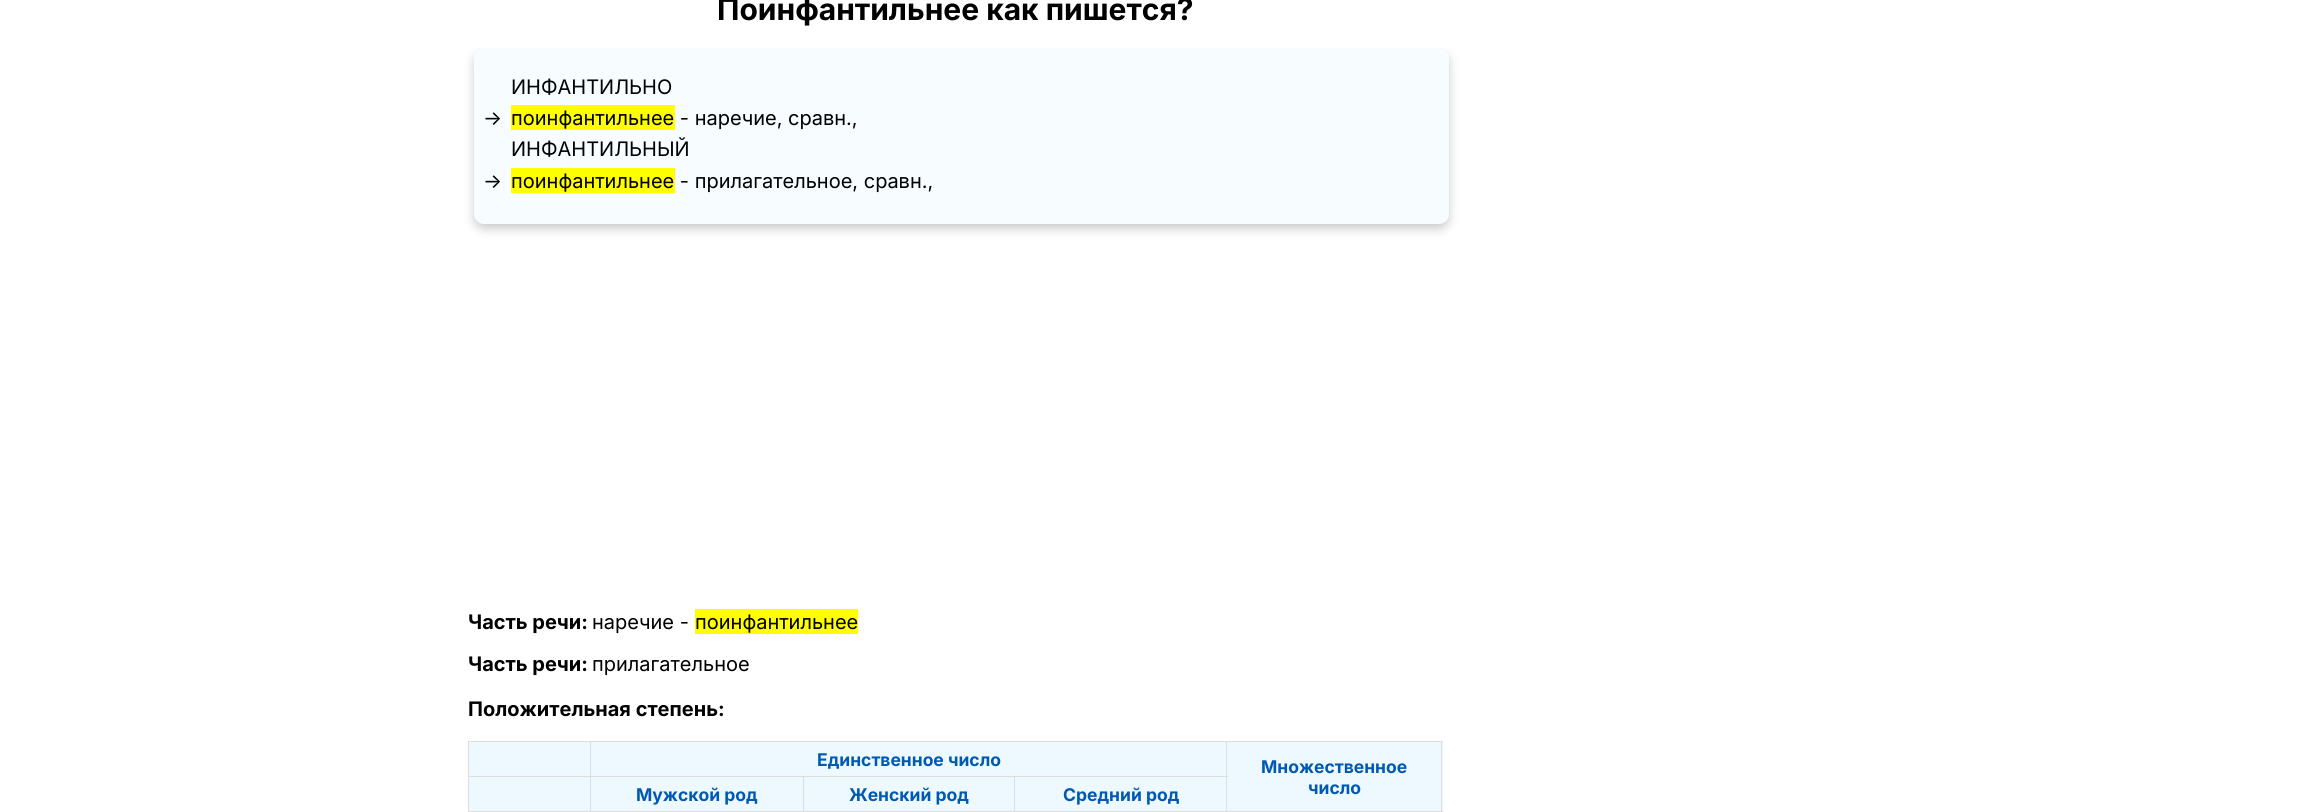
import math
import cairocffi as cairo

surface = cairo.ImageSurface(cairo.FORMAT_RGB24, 2309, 812)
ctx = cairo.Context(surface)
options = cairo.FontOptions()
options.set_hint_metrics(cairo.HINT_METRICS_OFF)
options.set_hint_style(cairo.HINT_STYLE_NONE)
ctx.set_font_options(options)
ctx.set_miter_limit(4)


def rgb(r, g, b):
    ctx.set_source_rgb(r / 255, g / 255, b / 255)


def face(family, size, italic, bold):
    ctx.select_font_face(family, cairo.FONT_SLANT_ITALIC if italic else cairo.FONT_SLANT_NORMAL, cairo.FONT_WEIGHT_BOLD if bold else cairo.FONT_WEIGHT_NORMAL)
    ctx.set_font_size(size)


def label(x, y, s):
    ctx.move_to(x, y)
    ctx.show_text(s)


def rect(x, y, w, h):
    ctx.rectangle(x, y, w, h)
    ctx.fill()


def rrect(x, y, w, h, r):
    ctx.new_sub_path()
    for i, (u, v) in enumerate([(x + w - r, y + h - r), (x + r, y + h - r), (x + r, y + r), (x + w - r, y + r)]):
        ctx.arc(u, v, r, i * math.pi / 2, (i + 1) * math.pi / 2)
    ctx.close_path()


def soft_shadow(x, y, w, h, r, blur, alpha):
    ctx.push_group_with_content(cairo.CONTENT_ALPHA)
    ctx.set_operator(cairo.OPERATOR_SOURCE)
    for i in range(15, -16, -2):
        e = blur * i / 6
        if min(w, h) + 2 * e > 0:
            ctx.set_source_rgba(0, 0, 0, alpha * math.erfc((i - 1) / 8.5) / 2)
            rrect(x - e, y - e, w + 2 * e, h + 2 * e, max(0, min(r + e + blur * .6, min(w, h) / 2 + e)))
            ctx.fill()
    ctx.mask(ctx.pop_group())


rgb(255, 255, 255)
ctx.paint()
face('Inter', 30, 0, 1)
rgb(0, 0, 0)
label(717, 20, 'Поинфантильнее как пишется?')
ctx.save()
ctx.rectangle(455, 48, 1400, 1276)
ctx.clip()
rgb(0, 0, 0)
soft_shadow(474, 53, 975, 176, 10, 5, 0.2)
ctx.restore()
rgb(246, 252, 255)
rrect(474, 48, 975, 176, 10)
ctx.fill()
face('Inter', 20, 0, 0)
rgb(0, 0, 0)
label(511, 94, 'ИНФАНТИЛЬНО')
label(483, 125, '→')
rgb(255, 255, 0)
rect(511, 105, 164, 25)
rgb(0, 0, 0)
label(511, 125, 'поинфантильнее - наречие, сравн.,')
label(511, 156, 'ИНФАНТИЛЬНЫЙ')
label(483, 188, '→')
rgb(255, 255, 0)
rect(511, 168, 164, 25)
rgb(0, 0, 0)
label(511, 188, 'поинфантильнее - прилагательное, сравн.,')
face('Inter', 20, 0, 1)
label(468, 629, 'Часть речи:')
face('Inter', 20, 0, 0)
label(592, 629, 'наречие -')
rgb(255, 255, 0)
rect(695, 609, 163, 25)
rgb(0, 0, 0)
label(695, 629, 'поинфантильнее')
face('Inter', 20, 0, 1)
label(468, 671, 'Часть речи:')
face('Inter', 20, 0, 0)
label(592, 671, 'прилагательное')
face('Inter', 20, 0, 1)
label(468, 716, 'Положительная степень:')
rgb(221, 221, 221)
rect(468, 741, 975, 1)
rgb(238, 249, 255)
rect(1228, 742, 215, 69)
rgb(221, 221, 221)
rect(1441, 741, 1, 71)
rect(468, 741, 1, 71)
rgb(238, 249, 255)
rect(469, 742, 121, 34)
rect(591, 742, 637, 34)
rgb(221, 221, 221)
rect(1014, 776, 214, 1)
rect(468, 811, 975, 1)
rect(1014, 776, 1, 36)
rect(803, 776, 212, 1)
rect(803, 776, 1, 36)
rect(590, 776, 214, 1)
rect(590, 776, 1, 36)
rect(468, 776, 123, 1)
rect(590, 741, 1, 37)
face('Inter', 17.5, 0, 1)
rgb(0, 89, 179)
label(817, 766, 'Единственное число')
rgb(238, 249, 255)
rect(1015, 777, 213, 34)
rgb(221, 221, 221)
rect(1226, 741, 1, 71)
rgb(0, 89, 179)
label(1261, 773, 'Множественное')
label(1308, 794, 'число')
rgb(238, 249, 255)
rect(469, 777, 121, 34)
rect(591, 777, 212, 34)
rgb(0, 89, 179)
label(636, 801, 'Мужской род')
rgb(238, 249, 255)
rect(804, 777, 210, 34)
rgb(0, 89, 179)
label(849, 801, 'Женский род')
label(1063, 801, 'Средний род')
surface.write_to_png('render.png')
